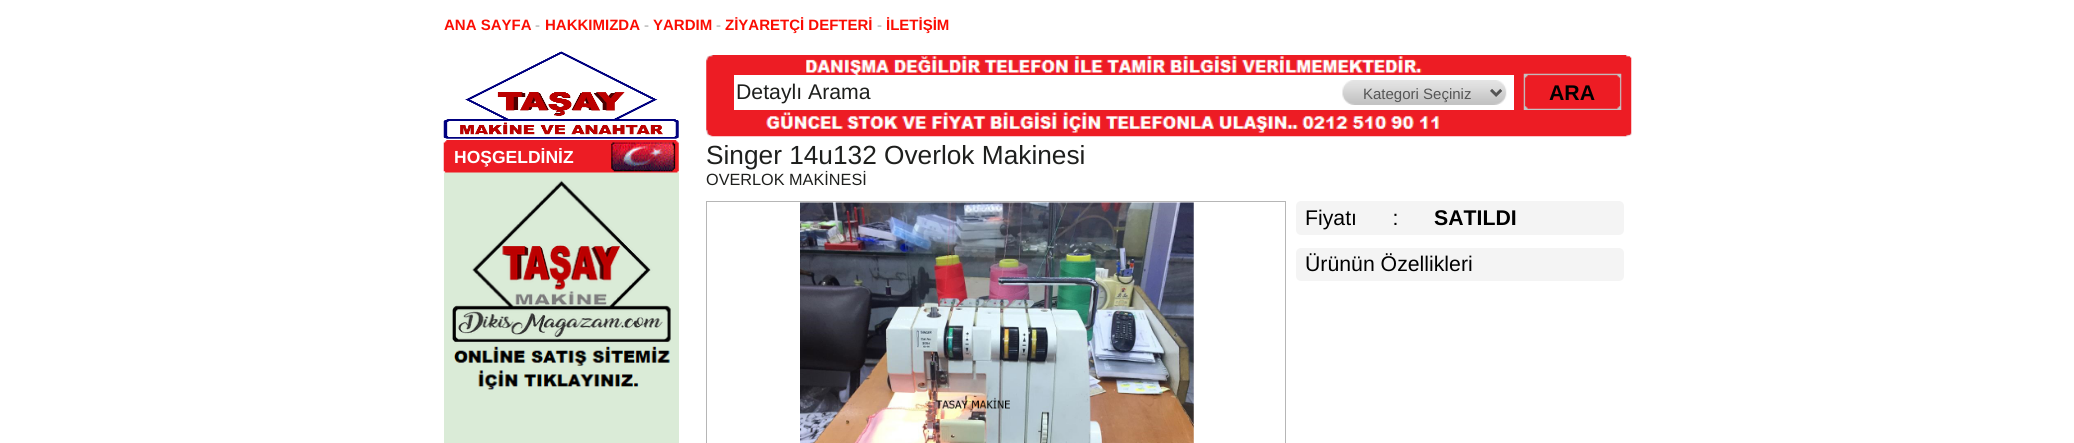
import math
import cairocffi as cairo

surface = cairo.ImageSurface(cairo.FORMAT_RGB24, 2074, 443)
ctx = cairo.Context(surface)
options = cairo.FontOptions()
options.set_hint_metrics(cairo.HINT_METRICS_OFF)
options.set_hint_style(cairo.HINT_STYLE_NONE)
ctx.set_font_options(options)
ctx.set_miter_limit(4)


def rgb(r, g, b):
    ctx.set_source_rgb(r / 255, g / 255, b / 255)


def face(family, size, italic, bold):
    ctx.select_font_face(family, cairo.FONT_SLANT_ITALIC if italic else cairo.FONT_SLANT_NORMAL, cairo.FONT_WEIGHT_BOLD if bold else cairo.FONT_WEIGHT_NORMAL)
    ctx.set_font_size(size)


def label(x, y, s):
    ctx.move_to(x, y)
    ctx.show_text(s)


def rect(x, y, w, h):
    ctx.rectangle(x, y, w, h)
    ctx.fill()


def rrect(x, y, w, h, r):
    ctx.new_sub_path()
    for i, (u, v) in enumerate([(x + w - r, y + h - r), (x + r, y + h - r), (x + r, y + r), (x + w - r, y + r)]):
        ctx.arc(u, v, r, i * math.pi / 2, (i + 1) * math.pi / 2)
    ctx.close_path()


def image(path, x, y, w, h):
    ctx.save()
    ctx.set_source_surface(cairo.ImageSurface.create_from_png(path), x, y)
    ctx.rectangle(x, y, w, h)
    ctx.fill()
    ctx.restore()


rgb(255, 255, 255)
ctx.paint()
face('Liberation Sans', 15, 0, 1)
rgb(251, 13, 3)
label(444, 30, 'ANA SAYFA')
rgb(198, 198, 198)
label(535, 30, '-')
rgb(251, 13, 3)
label(545, 30, 'HAKKIMIZDA')
rgb(198, 198, 198)
label(644, 30, '-')
rgb(251, 13, 3)
label(653, 30, 'YARDIM')
rgb(198, 198, 198)
label(716, 30, '-')
rgb(251, 13, 3)
label(725, 30, 'ZİYARETÇİ DEFTERİ')
rgb(198, 198, 198)
label(877, 30, '-')
rgb(251, 13, 3)
label(886, 30, 'İLETİŞİM')
image('image0.png', 443, 51, 236, 88)
image('image1.png', 706, 55, 926, 82)
rgb(255, 255, 255)
rect(734, 75, 780, 35)
face('Liberation Sans', 21.25, 0, 0)
rgb(30, 31, 29)
label(736, 99, 'Detaylı Arama')
image('image2.png', 1342, 80, 165, 25)
ctx.new_path()
ctx.move_to(1491, 90)
ctx.line_to(1496, 95)
ctx.line_to(1501, 90)
rgb(85, 85, 85)
ctx.set_line_width(2.5)
ctx.stroke()
face('Liberation Sans', 15, 0, 0)
label(1363, 99, 'Kategori Seçiniz')
image('image3.png', 1523, 73, 99, 37)
face('Liberation Sans', 21.25, 0, 1)
rgb(0, 0, 0)
label(1549, 100, 'ARA')
rgb(218, 235, 215)
rrect(444, 140, 235, 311, 8)
ctx.fill()
image('image4.png', 443, 140, 236, 33)
face('Liberation Sans', 17.5, 0, 1)
rgb(255, 255, 255)
label(454, 163, 'HOŞGELDİNİZ')
image('image5.png', 452, 180, 219, 210)
face('Liberation Sans', 26.25, 0, 0)
rgb(30, 31, 29)
label(706, 164, 'Singer 14u132 Overlok Makinesi')
face('Liberation Sans', 16.25, 0, 0)
label(706, 185, 'OVERLOK MAKİNESİ')
ctx.rectangle(706.5, 201.5, 579, 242)
rgb(182, 182, 182)
ctx.set_line_width(1)
ctx.stroke()
image('image6.png', 800, 202, 394, 241)
rgb(244, 244, 244)
rrect(1296, 201, 328, 34, 5)
ctx.fill()
face('Liberation Sans', 21.25, 0, 0)
rgb(0, 0, 0)
label(1305, 225, 'Fiyatı      :')
face('Liberation Sans', 21.25, 0, 1)
label(1434, 225, 'SATILDI')
rgb(244, 244, 244)
rrect(1296, 248, 328, 33, 5)
ctx.fill()
face('Liberation Sans', 21.25, 0, 0)
rgb(0, 0, 0)
label(1305, 271, 'Ürünün Özellikleri')
surface.write_to_png('render.png')
